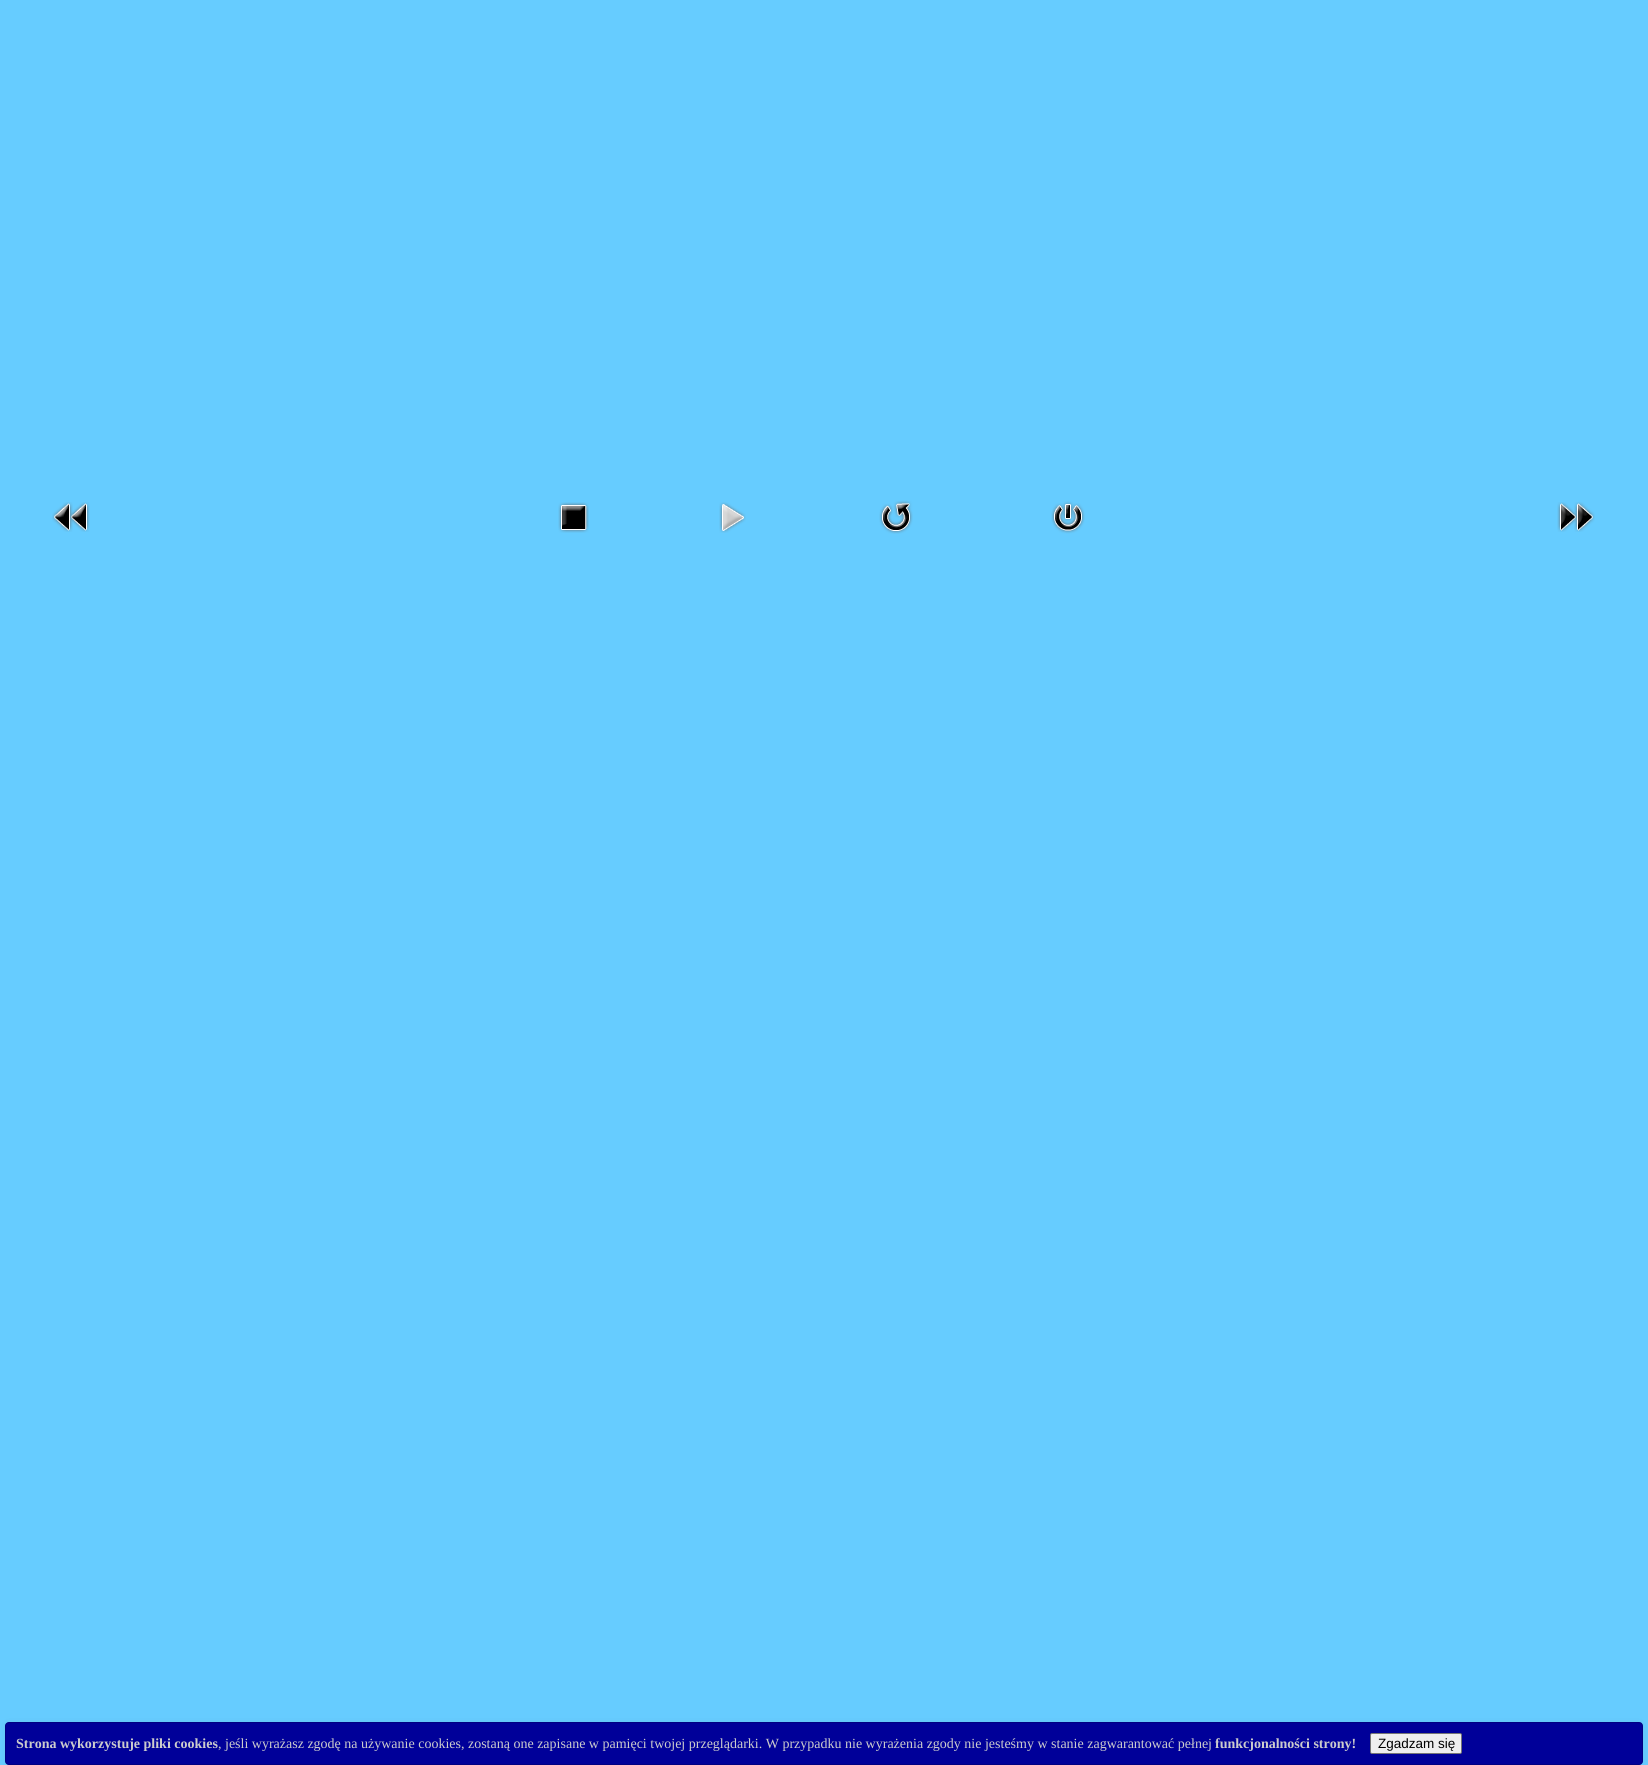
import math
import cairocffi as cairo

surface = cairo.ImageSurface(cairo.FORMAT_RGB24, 1648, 1765)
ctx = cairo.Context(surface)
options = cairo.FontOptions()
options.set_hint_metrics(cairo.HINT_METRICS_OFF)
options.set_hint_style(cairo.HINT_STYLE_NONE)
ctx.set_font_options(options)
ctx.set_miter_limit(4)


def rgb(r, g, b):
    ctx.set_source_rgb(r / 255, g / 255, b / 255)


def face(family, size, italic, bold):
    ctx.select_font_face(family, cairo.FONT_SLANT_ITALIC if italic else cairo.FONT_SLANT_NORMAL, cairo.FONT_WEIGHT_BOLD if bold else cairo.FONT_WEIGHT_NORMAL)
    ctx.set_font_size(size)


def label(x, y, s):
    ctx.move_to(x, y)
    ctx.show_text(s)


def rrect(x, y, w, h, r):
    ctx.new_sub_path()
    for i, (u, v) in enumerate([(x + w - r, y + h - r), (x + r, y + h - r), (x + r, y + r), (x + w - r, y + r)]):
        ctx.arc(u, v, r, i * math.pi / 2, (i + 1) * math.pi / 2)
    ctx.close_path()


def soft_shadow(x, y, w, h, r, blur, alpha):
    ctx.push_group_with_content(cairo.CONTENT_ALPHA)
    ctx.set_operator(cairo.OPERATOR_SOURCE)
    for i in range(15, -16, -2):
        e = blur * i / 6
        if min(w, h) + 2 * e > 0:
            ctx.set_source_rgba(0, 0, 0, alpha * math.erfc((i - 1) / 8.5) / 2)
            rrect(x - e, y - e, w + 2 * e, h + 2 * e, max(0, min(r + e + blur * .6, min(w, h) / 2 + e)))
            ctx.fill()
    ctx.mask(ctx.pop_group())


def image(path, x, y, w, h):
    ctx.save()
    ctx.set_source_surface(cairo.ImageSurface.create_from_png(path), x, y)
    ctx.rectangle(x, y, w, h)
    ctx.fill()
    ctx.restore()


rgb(102, 204, 255)
ctx.paint()
image('image0.png', 52, 502, 38, 30)
image('image1.png', 558, 502, 31, 31)
image('image2.png', 719, 502, 27, 31)
image('image3.png', 879, 500, 34, 34)
image('image4.png', 1051, 501, 34, 33)
image('image5.png', 1557, 502, 38, 30)
rgb(0, 0, 0)
soft_shadow(5, 1722, 1638, 43, 4, 3, 0.05)
rgb(0, 0, 153)
rrect(5, 1722, 1638, 43, 4)
ctx.fill()
rrect(5.5, 1722.5, 1637, 42, 3.5)
ctx.set_source_rgba(0, 0, 0, 0.15)
ctx.set_line_width(1)
ctx.stroke()
face('Liberation Serif', 14, 0, 1)
rgb(204, 204, 204)
label(16, 1748, 'Strona wykorzystuje pliki cookies')
face('Liberation Serif', 14, 0, 0)
label(218, 1748, ', jeśli wyrażasz zgodę na używanie cookies, zostaną one zapisane w pamięci twojej przeglądarki. W przypadku nie wyrażenia zgody nie jesteśmy w stanie zagwarantować pełnej')
face('Liberation Serif', 14, 0, 1)
label(1215, 1748, 'funkcjonalności strony!')
rgb(239, 239, 239)
rrect(1370.5, 1733.5, 91, 20, 1.5)
ctx.fill_preserve()
rgb(118, 118, 118)
ctx.stroke()
face('Liberation Sans', 13.5, 0, 0)
rgb(0, 0, 0)
label(1378, 1748, 'Zgadzam się')
surface.write_to_png('render.png')
